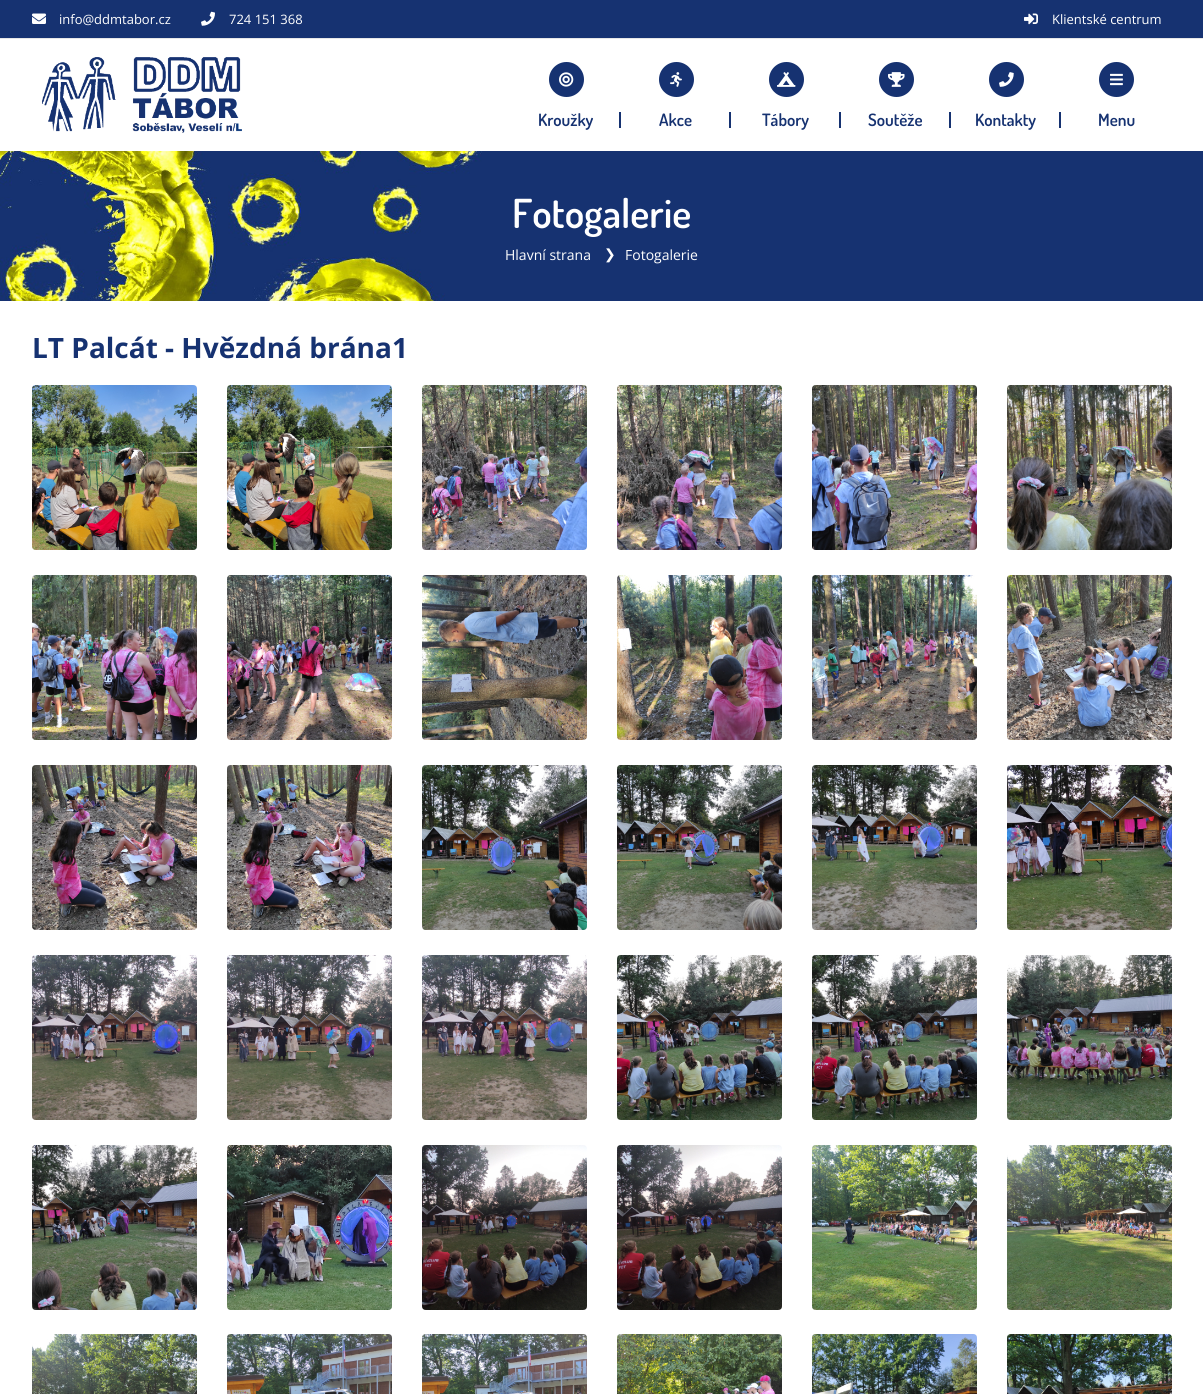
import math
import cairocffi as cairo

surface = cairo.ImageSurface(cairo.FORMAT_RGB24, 1203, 1394)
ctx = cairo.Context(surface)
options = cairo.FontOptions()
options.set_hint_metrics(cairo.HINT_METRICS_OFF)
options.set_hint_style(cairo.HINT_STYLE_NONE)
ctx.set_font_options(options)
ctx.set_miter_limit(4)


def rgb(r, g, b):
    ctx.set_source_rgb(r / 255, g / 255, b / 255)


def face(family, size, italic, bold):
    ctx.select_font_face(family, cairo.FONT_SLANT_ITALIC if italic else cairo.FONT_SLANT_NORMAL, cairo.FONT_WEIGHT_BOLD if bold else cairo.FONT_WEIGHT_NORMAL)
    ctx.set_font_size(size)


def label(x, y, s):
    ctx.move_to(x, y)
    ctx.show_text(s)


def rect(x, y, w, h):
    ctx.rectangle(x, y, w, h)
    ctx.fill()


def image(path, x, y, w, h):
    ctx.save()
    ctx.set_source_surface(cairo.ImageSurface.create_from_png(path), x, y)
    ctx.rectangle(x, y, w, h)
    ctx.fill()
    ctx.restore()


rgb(255, 255, 255)
ctx.paint()
rgb(22, 50, 113)
rect(0, 0, 1203, 38)
rgb(231, 231, 231)
rect(0, 38, 1203, 1)
image('image0.png', 32, 13, 14, 11)
face('Open Sans', 13, 0, 0)
rgb(255, 255, 255)
label(59, 24, 'info@ddmtabor.cz')
image('image1.png', 201, 11, 14, 15)
label(229, 24, '724 151 368')
image('image2.png', 1024, 13, 14, 12)
label(1052, 24, 'Klientské centrum')
image('image3.png', 42, 57, 200, 76)
rgb(22, 50, 113)
ctx.arc(566.5, 79.5, 17.5, 0, 2 * math.pi)
ctx.fill()
image('image4.png', 559, 72, 15, 15)
rect(619, 112, 2, 16)
face('Dosis SemiBold', 17, 0, 0)
label(538, 126, 'Kroužky')
ctx.new_path()
ctx.arc(676.5, 79.5, 17.5, 0, 2 * math.pi)
ctx.fill()
image('image5.png', 670, 72, 12, 15)
rect(729, 112, 2, 16)
label(659, 126, 'Akce')
ctx.new_path()
ctx.arc(786.5, 79.5, 17.5, 0, 2 * math.pi)
ctx.fill()
image('image6.png', 777, 72, 19, 15)
rect(839, 112, 2, 16)
label(762, 126, 'Tábory')
ctx.new_path()
ctx.arc(896.5, 79.5, 17.5, 0, 2 * math.pi)
ctx.fill()
image('image7.png', 888, 72, 17, 15)
rect(949, 112, 2, 16)
label(868, 126, 'Soutěže')
ctx.new_path()
ctx.arc(1006.5, 79.5, 17.5, 0, 2 * math.pi)
ctx.fill()
image('image8.png', 999, 72, 15, 15)
rect(1059, 112, 2, 16)
label(975, 126, 'Kontakty')
ctx.new_path()
ctx.arc(1116.5, 79.5, 17.5, 0, 2 * math.pi)
ctx.fill()
image('image9.png', 1110, 73, 13, 13)
label(1098, 126, 'Menu')
rect(482, 151, 721, 150)
image('image10.png', 0, 151, 482, 150)
face('Dosis SemiBold', 40, 0, 0)
rgb(255, 255, 255)
label(512, 228, 'Fotogalerie')
face('Open Sans', 14, 0, 0)
label(505, 260, 'Hlavní strana')
face('DejaVu Sans', 14, 0, 0)
label(604, 259, '❯')
face('Open Sans', 14, 0, 0)
label(625, 260, 'Fotogalerie')
face('Open Sans', 28, 0, 1)
rgb(22, 50, 113)
label(32, 358, 'LT Palcát - Hvězdná brána1')
image('image11.png', 32, 385, 165, 165)
image('image12.png', 227, 385, 165, 165)
image('image13.png', 422, 385, 165, 165)
image('image14.png', 617, 385, 165, 165)
image('image15.png', 812, 385, 165, 165)
image('image16.png', 1007, 385, 165, 165)
image('image17.png', 32, 575, 165, 165)
image('image18.png', 227, 575, 165, 165)
image('image19.png', 422, 575, 165, 165)
image('image20.png', 617, 575, 165, 165)
image('image21.png', 812, 575, 165, 165)
image('image22.png', 1007, 575, 165, 165)
image('image23.png', 32, 765, 165, 165)
image('image24.png', 227, 765, 165, 165)
image('image25.png', 422, 765, 165, 165)
image('image26.png', 617, 765, 165, 165)
image('image27.png', 812, 765, 165, 165)
image('image28.png', 1007, 765, 165, 165)
image('image29.png', 32, 955, 165, 165)
image('image30.png', 227, 955, 165, 165)
image('image31.png', 422, 955, 165, 165)
image('image32.png', 617, 955, 165, 165)
image('image33.png', 812, 955, 165, 165)
image('image34.png', 1007, 955, 165, 165)
image('image35.png', 32, 1145, 165, 165)
image('image36.png', 227, 1145, 165, 165)
image('image37.png', 422, 1145, 165, 165)
image('image38.png', 617, 1145, 165, 165)
image('image39.png', 812, 1145, 165, 165)
image('image40.png', 1007, 1145, 165, 165)
image('image41.png', 32, 1334, 165, 60)
image('image42.png', 227, 1334, 165, 60)
image('image43.png', 422, 1334, 165, 60)
image('image44.png', 617, 1334, 165, 60)
image('image45.png', 812, 1334, 165, 60)
image('image46.png', 1007, 1334, 165, 60)
surface.write_to_png('render.png')
